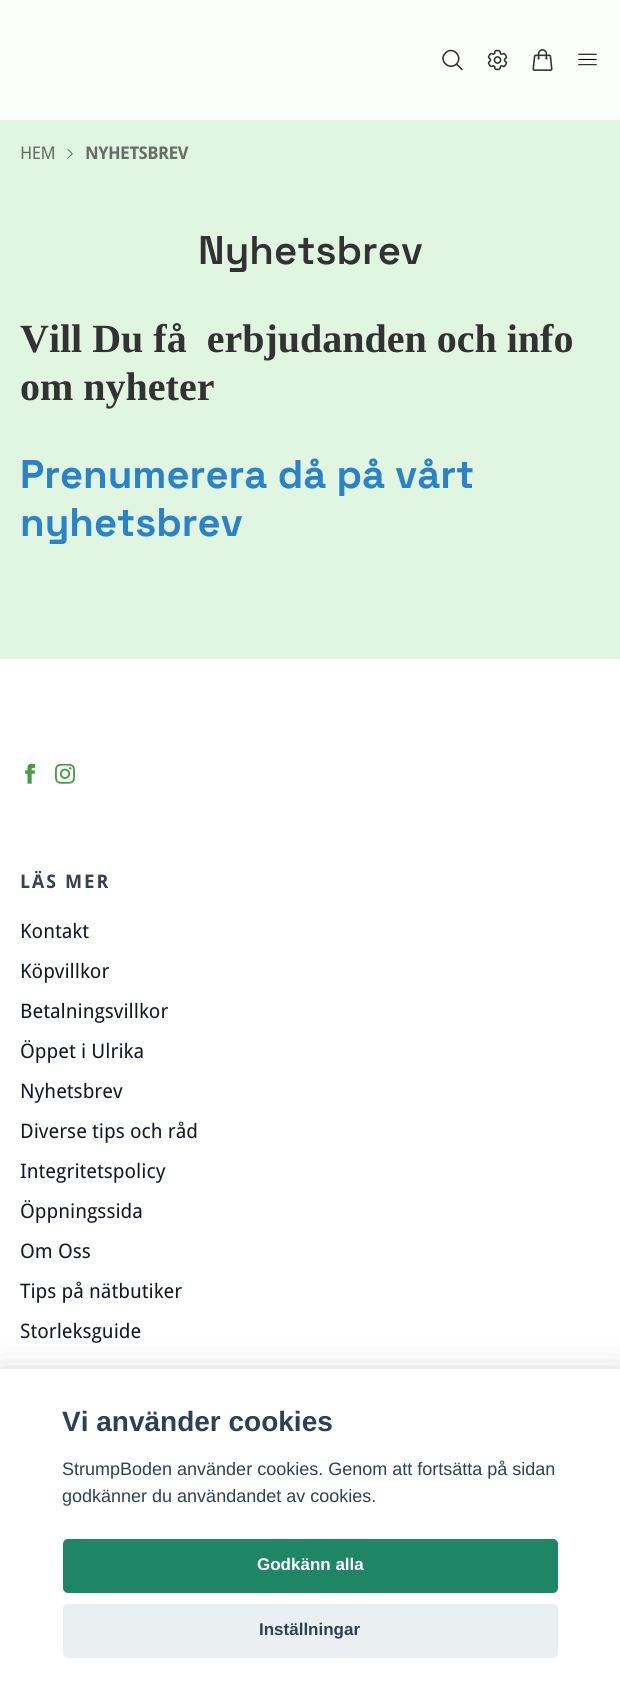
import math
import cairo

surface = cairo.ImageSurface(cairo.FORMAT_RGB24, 620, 1694)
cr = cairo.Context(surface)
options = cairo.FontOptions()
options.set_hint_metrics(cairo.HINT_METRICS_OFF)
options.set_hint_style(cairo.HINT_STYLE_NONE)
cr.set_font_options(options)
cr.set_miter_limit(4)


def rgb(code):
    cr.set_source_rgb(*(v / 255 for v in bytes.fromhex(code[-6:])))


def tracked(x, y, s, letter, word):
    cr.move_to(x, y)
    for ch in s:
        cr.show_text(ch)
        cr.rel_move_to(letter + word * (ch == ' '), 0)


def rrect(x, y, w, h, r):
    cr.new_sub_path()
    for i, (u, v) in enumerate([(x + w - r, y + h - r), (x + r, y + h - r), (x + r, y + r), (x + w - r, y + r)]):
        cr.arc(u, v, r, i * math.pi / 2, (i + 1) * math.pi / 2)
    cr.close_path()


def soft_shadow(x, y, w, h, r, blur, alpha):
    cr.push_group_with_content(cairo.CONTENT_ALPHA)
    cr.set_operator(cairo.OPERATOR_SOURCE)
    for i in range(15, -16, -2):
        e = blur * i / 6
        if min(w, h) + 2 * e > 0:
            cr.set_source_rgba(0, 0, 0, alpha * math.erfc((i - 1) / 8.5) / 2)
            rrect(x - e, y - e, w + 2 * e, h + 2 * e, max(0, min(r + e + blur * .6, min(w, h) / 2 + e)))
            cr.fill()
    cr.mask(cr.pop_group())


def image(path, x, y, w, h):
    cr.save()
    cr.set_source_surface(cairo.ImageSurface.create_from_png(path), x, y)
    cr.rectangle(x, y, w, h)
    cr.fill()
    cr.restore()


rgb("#e1f6e1")
cr.paint()
rgb("#fcfefc")
cr.rectangle(0, 0, 620, 120)
cr.fill()
cr.new_path()
cr.move_to(462, 69.5)
cr.line_to(456.5, 64)
cr.move_to(456.5, 64)
cr.curve_to(463.5, 56.5, 452.5, 45.5, 445.5, 53)
cr.curve_to(438, 60, 449, 71, 456.5, 64)
cr.close_path()
rgb("#323232")
cr.set_line_width(1.6)
cr.set_line_cap(cairo.LINE_CAP_ROUND)
cr.set_line_join(cairo.LINE_JOIN_ROUND)
cr.stroke()
image("img/1.png", 487, 49, 21, 22)
image("img/2.png", 532, 49, 21, 22)
image("img/3.png", 578, 53, 19, 13)
image("img/4.png", 67, 149, 6, 10)
rgb("#ffffff")
cr.rectangle(0, 659, 620, 710)
cr.fill()
image("img/5.png", 25, 764, 10, 20)
image("img/6.png", 55, 764, 20, 20)
rgb("#020203")
soft_shadow(0, 1381, 620, 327, 0, 19, 0.28)
rgb("#ffffff")
cr.rectangle(0, 1369, 620, 325)
cr.fill()
rgb("#1f8665")
rrect(63, 1539, 495, 54, 5)
cr.fill()
rgb("#eaeff2")
rrect(63, 1604, 495, 54, 5)
cr.fill()
cr.select_font_face("Droid Sans")
cr.set_font_size(17.5)
rgb("#676d67")
tracked(20, 159, "HEM", -0.5, 0)
cr.select_font_face("Droid Sans", cairo.FONT_SLANT_NORMAL, cairo.FONT_WEIGHT_BOLD)
tracked(85, 159, "NYHETSBREV", -0.5, 0)
cr.select_font_face("Space Grotesk SemiBold")
cr.set_font_size(40)
rgb("#323232")
cr.move_to(198, 264)
cr.show_text("Nyhetsbrev")
cr.select_font_face("Liberation Serif", cairo.FONT_SLANT_NORMAL, cairo.FONT_WEIGHT_BOLD)
cr.move_to(20, 352)
cr.show_text("Vill Du få  erbjudanden och info")
cr.move_to(20, 400)
cr.show_text("om nyheter")
cr.select_font_face("Space Grotesk", cairo.FONT_SLANT_NORMAL, cairo.FONT_WEIGHT_BOLD)
rgb("#2c82c9")
cr.move_to(20, 488)
cr.show_text("Prenumerera då på vårt")
cr.move_to(20, 536)
cr.show_text("nyhetsbrev")
cr.select_font_face("Droid Sans", cairo.FONT_SLANT_NORMAL, cairo.FONT_WEIGHT_BOLD)
cr.set_font_size(18.75)
rgb("#374151")
tracked(20, 888, "LÄS MER", 2, 0)
cr.select_font_face("Droid Sans")
cr.set_font_size(20)
rgb("#111827")
for x, y, s in [
    (20, 938, "Kontakt"),
    (20, 978, "Köpvillkor"),
    (20, 1018, "Betalningsvillkor"),
    (20, 1058, "Öppet i Ulrika"),
    (20, 1098, "Nyhetsbrev"),
    (20, 1138, "Diverse tips och råd"),
    (20, 1178, "Integritetspolicy"),
    (20, 1218, "Öppningssida"),
    (20, 1258, "Om Oss"),
    (20, 1298, "Tips på nätbutiker"),
    (20, 1338, "Storleksguide"),
]:
    cr.move_to(x, y)
    cr.show_text(s)
cr.select_font_face("Liberation Sans", cairo.FONT_SLANT_NORMAL, cairo.FONT_WEIGHT_BOLD)
cr.set_font_size(28)
rgb("#2d4156")
cr.move_to(62, 1431)
cr.show_text("Vi använder cookies")
cr.select_font_face("Liberation Sans")
cr.set_font_size(18)
cr.move_to(62, 1475)
cr.show_text("StrumpBoden använder cookies. Genom att fortsätta på sidan")
cr.move_to(62, 1502)
cr.show_text("godkänner du användandet av cookies.")
cr.select_font_face("Liberation Sans", cairo.FONT_SLANT_NORMAL, cairo.FONT_WEIGHT_BOLD)
cr.set_font_size(17)
rgb("#ffffff")
cr.move_to(257, 1570)
cr.show_text("Godkänn alla")
rgb("#2d4156")
cr.move_to(259, 1635)
cr.show_text("Inställningar")
surface.write_to_png("page.png")
